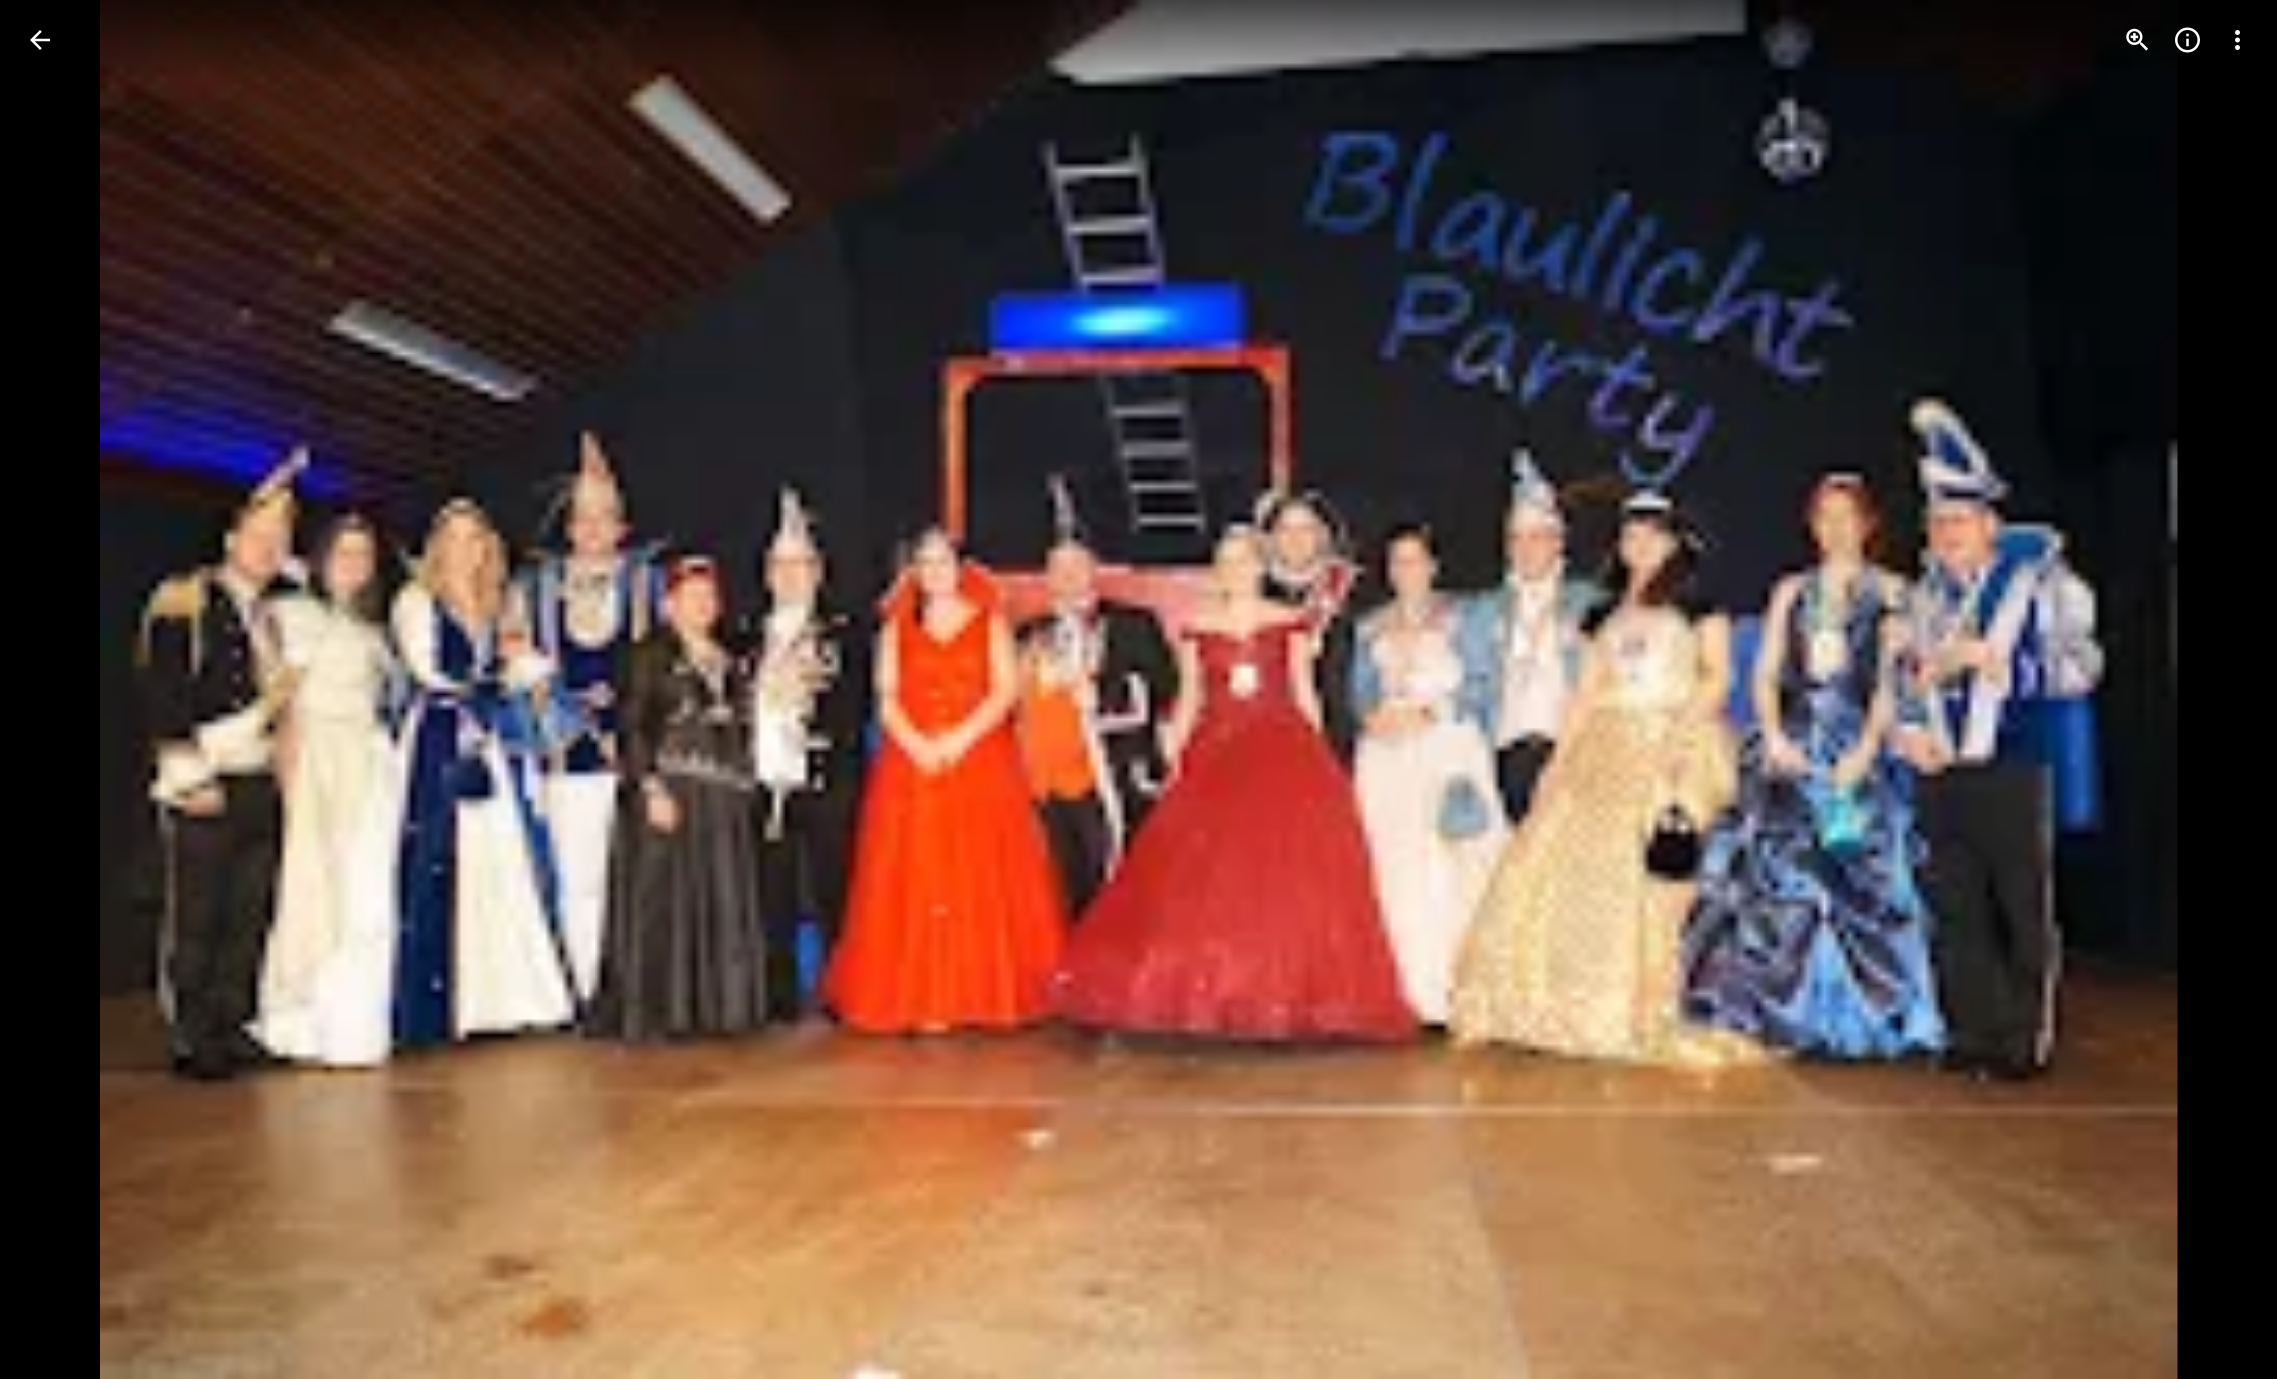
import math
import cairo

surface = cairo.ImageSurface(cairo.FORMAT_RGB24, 2277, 1379)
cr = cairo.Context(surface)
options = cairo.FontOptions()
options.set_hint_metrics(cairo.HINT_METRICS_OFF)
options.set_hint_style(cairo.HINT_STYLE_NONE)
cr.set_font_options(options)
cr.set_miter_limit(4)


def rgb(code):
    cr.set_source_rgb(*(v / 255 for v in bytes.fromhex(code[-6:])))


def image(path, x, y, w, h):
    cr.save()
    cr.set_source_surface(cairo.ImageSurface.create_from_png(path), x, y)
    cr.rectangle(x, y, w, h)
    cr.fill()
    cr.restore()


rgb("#000000")
cr.paint()
image("img/5.png", 100, 0, 2078, 1379)
gradient = cairo.LinearGradient(1139, 0, 1139, 80)
gradient.add_color_stop_rgba(0, 0, 0, 0, 0.6)
gradient.add_color_stop_rgba(1, 0, 0, 0, 0)
cr.set_source(gradient)
cr.rectangle(100, 0, 2077, 77)
cr.fill()
image("img/1.png", 30, 30, 20, 20)
image("img/2.png", 2126, 28, 22, 23)
image("img/3.png", 2175, 27, 25, 26)
image("img/4.png", 2235, 30, 5, 20)
surface.write_to_png("page.png")
